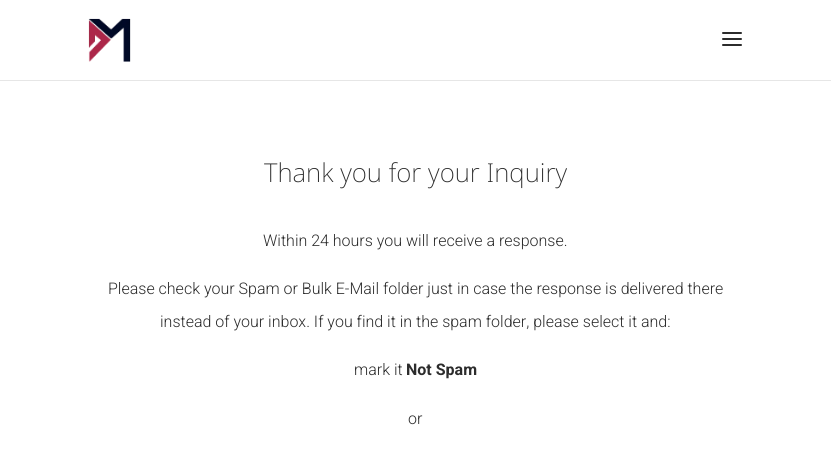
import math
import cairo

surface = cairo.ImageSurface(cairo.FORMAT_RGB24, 831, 457)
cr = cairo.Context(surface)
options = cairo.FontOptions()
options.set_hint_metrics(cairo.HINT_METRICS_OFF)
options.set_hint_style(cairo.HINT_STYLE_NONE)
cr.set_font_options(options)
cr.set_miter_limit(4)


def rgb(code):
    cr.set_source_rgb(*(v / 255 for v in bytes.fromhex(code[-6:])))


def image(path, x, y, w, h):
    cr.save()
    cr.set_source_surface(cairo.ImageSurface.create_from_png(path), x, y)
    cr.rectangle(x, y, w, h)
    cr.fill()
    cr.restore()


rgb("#ffffff")
cr.paint()
rgb("#e6e6e6")
cr.rectangle(0, 80, 831, 1)
cr.fill()
image("img/1.png", 88, 18, 43, 44)
image("img/2.png", 722, 32, 20, 14)
cr.select_font_face("Noto Sans ExtraLight")
cr.set_font_size(26)
rgb("#2c2c2c")
cr.move_to(264, 182)
cr.show_text("Thank you for your Inquiry")
cr.select_font_face("Roboto Light")
cr.set_font_size(16)
for x, y, s in [
    (263, 246, "Within 24 hours you will receive a response."),
    (108, 294, "Please check your Spam or Bulk E-Mail folder just in case the response is delivered there"),
    (160, 327, "instead of your inbox. If you find it in the spam folder, please select it and:"),
    (354, 375, "mark it"),
]:
    cr.move_to(x, y)
    cr.show_text(s)
cr.select_font_face("Roboto", cairo.FONT_SLANT_NORMAL, cairo.FONT_WEIGHT_BOLD)
cr.move_to(406, 375)
cr.show_text("Not Spam")
cr.select_font_face("Roboto Light")
cr.move_to(408, 424)
cr.show_text("or")
surface.write_to_png("page.png")
